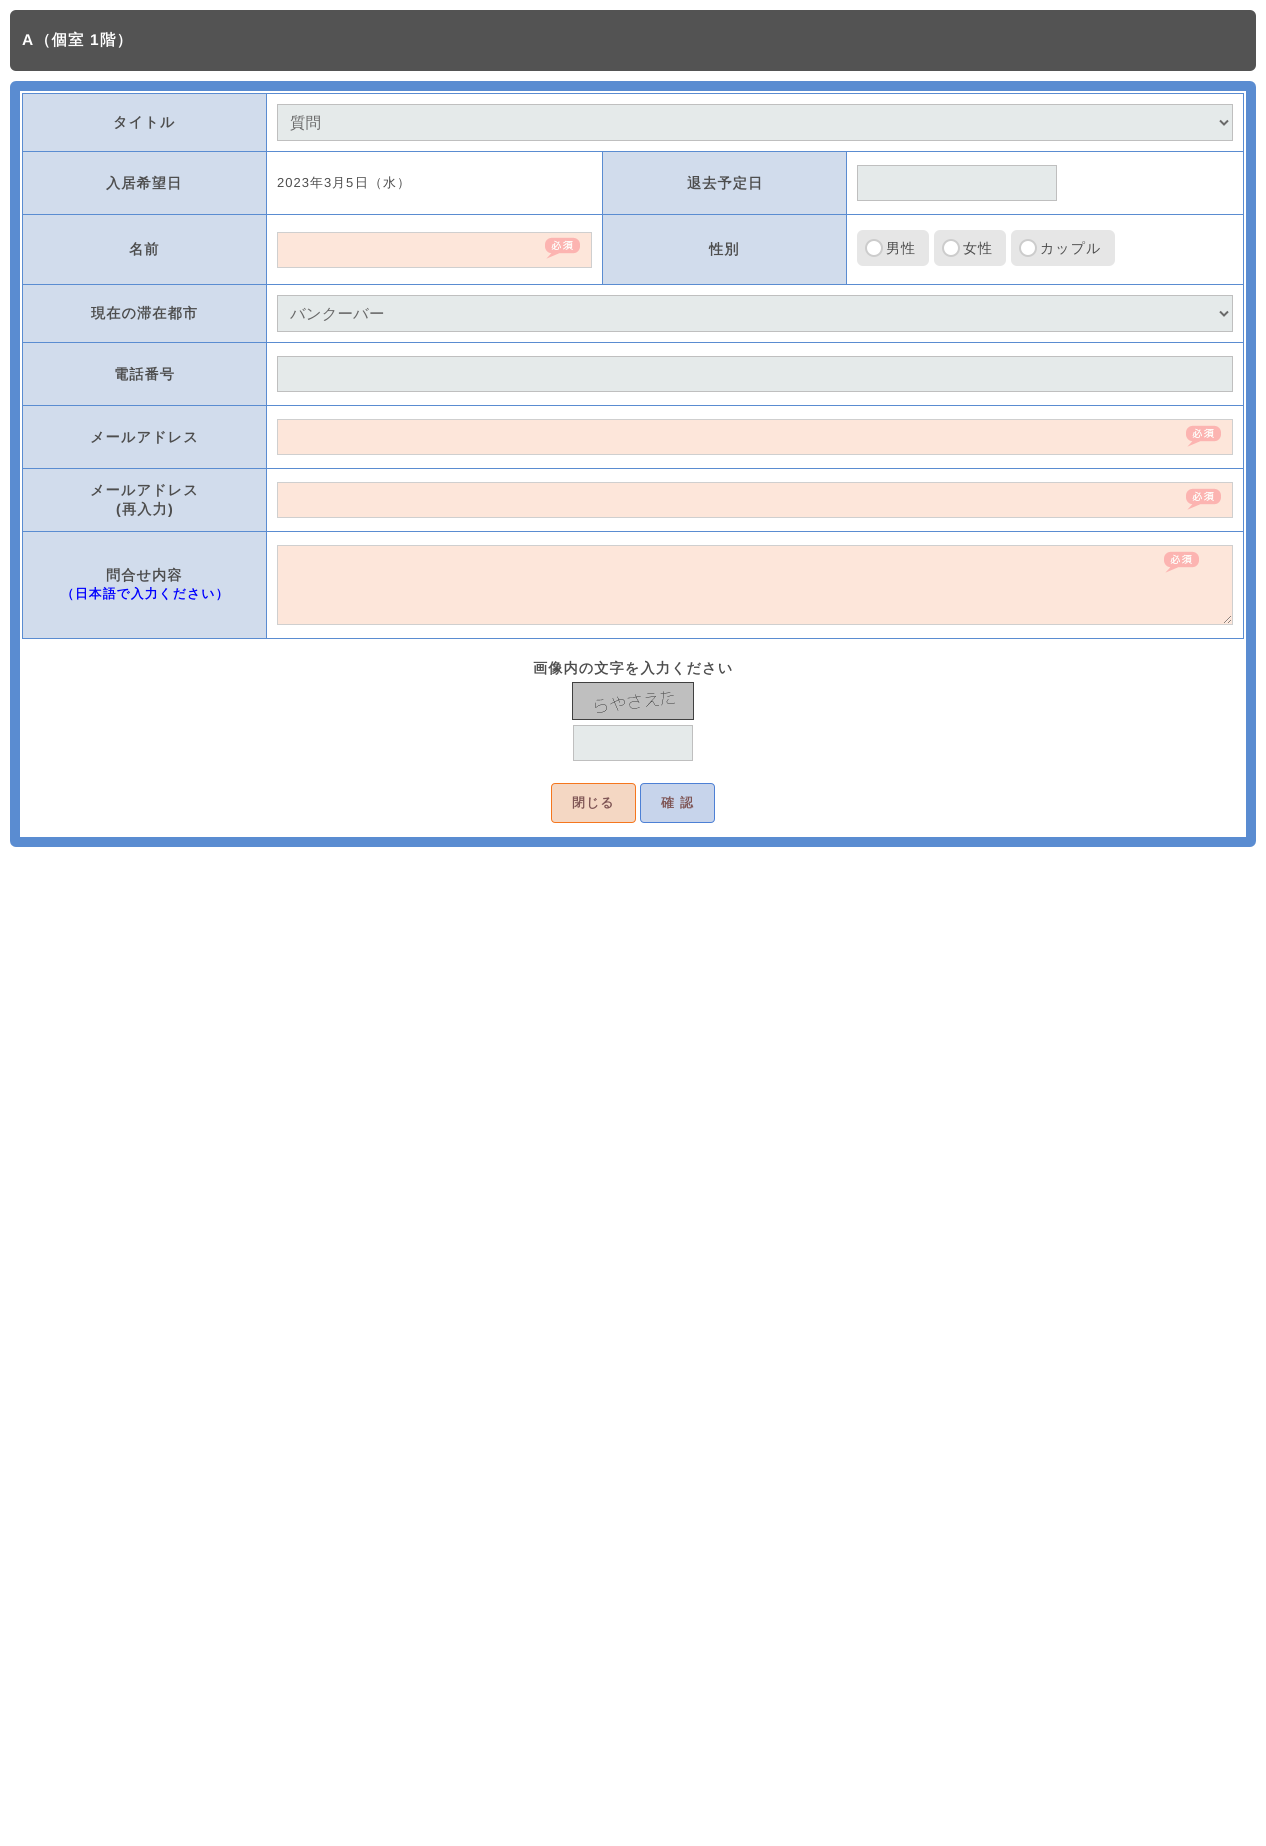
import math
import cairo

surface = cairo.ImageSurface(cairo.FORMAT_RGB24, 1266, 1846)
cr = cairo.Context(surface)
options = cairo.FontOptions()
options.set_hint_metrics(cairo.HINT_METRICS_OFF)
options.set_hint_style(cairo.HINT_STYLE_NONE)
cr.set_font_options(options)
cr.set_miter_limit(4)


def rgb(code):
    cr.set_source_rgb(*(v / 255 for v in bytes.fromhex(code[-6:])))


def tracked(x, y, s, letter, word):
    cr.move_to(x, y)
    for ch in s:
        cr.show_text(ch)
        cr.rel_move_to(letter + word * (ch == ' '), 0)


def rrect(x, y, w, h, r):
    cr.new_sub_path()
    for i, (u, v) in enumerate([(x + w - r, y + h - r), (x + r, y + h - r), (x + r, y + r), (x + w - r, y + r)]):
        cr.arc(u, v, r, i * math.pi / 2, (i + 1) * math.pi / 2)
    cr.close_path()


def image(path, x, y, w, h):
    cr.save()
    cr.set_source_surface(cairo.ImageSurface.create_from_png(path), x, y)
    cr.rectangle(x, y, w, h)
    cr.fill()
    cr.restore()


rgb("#ffffff")
cr.paint()
rgb("#535353")
rrect(10, 10, 1246, 61, 6)
cr.fill()
rrect(15, 86, 1236, 756, 1)
rgb("#5a8cd1")
cr.set_line_width(10)
cr.stroke()
for x, y, w, h, color in [
    (23, 94, 243, 57, "#d1dcec"),
    (266, 93, 978, 1, "#5a8cd1"),
    (846, 151, 398, 1, "#5a8cd1"),
    (846, 214, 398, 1, "#5a8cd1"),
    (266, 284, 978, 1, "#5a8cd1"),
    (846, 214, 1, 71, "#5a8cd1"),
    (602, 214, 245, 1, "#5a8cd1"),
    (846, 151, 1, 64, "#5a8cd1"),
    (602, 151, 245, 1, "#5a8cd1"),
    (602, 214, 1, 71, "#5a8cd1"),
    (266, 214, 337, 1, "#5a8cd1"),
    (602, 151, 1, 64, "#5a8cd1"),
    (266, 151, 337, 1, "#5a8cd1"),
    (266, 342, 978, 1, "#5a8cd1"),
    (266, 405, 978, 1, "#5a8cd1"),
    (266, 468, 978, 1, "#5a8cd1"),
    (266, 531, 978, 1, "#5a8cd1"),
    (1243, 531, 1, 108, "#5a8cd1"),
    (266, 638, 978, 1, "#5a8cd1"),
    (266, 531, 1, 108, "#5a8cd1"),
    (22, 531, 245, 1, "#5a8cd1"),
    (266, 468, 1, 64, "#5a8cd1"),
    (22, 468, 245, 1, "#5a8cd1"),
    (266, 405, 1, 64, "#5a8cd1"),
    (22, 405, 245, 1, "#5a8cd1"),
    (266, 342, 1, 64, "#5a8cd1"),
    (22, 342, 245, 1, "#5a8cd1"),
    (266, 284, 1, 59, "#5a8cd1"),
    (22, 284, 245, 1, "#5a8cd1"),
    (266, 214, 1, 71, "#5a8cd1"),
    (22, 214, 245, 1, "#5a8cd1"),
    (266, 151, 1, 64, "#5a8cd1"),
    (22, 151, 245, 1, "#5a8cd1"),
    (266, 93, 1, 59, "#5a8cd1"),
    (22, 93, 245, 1, "#5a8cd1"),
    (22, 638, 245, 1, "#5a8cd1"),
    (22, 531, 1, 108, "#5a8cd1"),
    (22, 468, 1, 64, "#5a8cd1"),
    (22, 405, 1, 64, "#5a8cd1"),
    (22, 342, 1, 64, "#5a8cd1"),
    (22, 284, 1, 59, "#5a8cd1"),
    (22, 214, 1, 71, "#5a8cd1"),
    (22, 151, 1, 64, "#5a8cd1"),
    (22, 93, 1, 59, "#5a8cd1"),
    (1243, 468, 1, 64, "#5a8cd1"),
    (1243, 405, 1, 64, "#5a8cd1"),
    (1243, 342, 1, 64, "#5a8cd1"),
    (1243, 284, 1, 59, "#5a8cd1"),
    (1243, 214, 1, 71, "#5a8cd1"),
    (1243, 151, 1, 64, "#5a8cd1"),
    (1243, 93, 1, 59, "#5a8cd1"),
]:
    rgb(color)
    cr.rectangle(x, y, w, h)
    cr.fill()
rgb("#e5eaea")
cr.rectangle(277.5, 104.5, 955, 36)
cr.fill_preserve()
rgb("#bfbfbf")
cr.set_line_width(1)
cr.stroke()
cr.new_path()
cr.move_to(1220, 120.5)
cr.line_to(1224, 124.5)
cr.line_to(1228, 120.5)
rgb("#696969")
cr.set_line_width(2)
cr.stroke()
rgb("#d1dcec")
cr.rectangle(23, 152, 243, 62)
cr.fill()
cr.rectangle(603, 152, 243, 62)
cr.fill()
rgb("#e5eaea")
cr.rectangle(857.5, 165.5, 199, 35)
cr.fill_preserve()
rgb("#bfbfbf")
cr.set_line_width(1)
cr.stroke()
rgb("#d1dcec")
cr.rectangle(23, 215, 243, 69)
cr.fill()
rgb("#fde6da")
cr.rectangle(278, 233, 313, 34)
cr.fill()
image("img/1.png", 545, 237, 35, 22)
cr.rectangle(277.5, 232.5, 314, 35)
rgb("#cfcfcf")
cr.stroke()
rgb("#d1dcec")
cr.rectangle(603, 215, 243, 69)
cr.fill()
rgb("#e6e6e6")
rrect(857, 230, 72, 36, 6)
cr.fill()
rgb("#ffffff")
cr.arc(874, 248, 8, 0, 2 * math.pi)
cr.fill_preserve()
rgb("#cccccc")
cr.set_line_width(2)
cr.stroke()
rgb("#e6e6e6")
rrect(934, 230, 72, 36, 6)
cr.fill()
rgb("#ffffff")
cr.arc(951, 248, 8, 0, 2 * math.pi)
cr.fill_preserve()
rgb("#cccccc")
cr.stroke()
rgb("#e6e6e6")
rrect(1011, 230, 104, 36, 6)
cr.fill()
rgb("#ffffff")
cr.arc(1028, 248, 8, 0, 2 * math.pi)
cr.fill_preserve()
rgb("#cccccc")
cr.stroke()
rgb("#d1dcec")
cr.rectangle(23, 285, 243, 57)
cr.fill()
rgb("#e5eaea")
cr.rectangle(277.5, 295.5, 955, 36)
cr.fill_preserve()
rgb("#bfbfbf")
cr.set_line_width(1)
cr.stroke()
cr.new_path()
cr.move_to(1220, 311.5)
cr.line_to(1224, 315.5)
cr.line_to(1228, 311.5)
rgb("#696969")
cr.set_line_width(2)
cr.stroke()
rgb("#d1dcec")
cr.rectangle(23, 343, 243, 62)
cr.fill()
rgb("#e5eaea")
cr.rectangle(277.5, 356.5, 955, 35)
cr.fill_preserve()
rgb("#bfbfbf")
cr.set_line_width(1)
cr.stroke()
rgb("#d1dcec")
cr.rectangle(23, 406, 243, 62)
cr.fill()
rgb("#fde6da")
cr.rectangle(278, 420, 954, 34)
cr.fill()
image("img/1.png", 1186, 425, 35, 22)
cr.rectangle(277.5, 419.5, 955, 35)
rgb("#cfcfcf")
cr.stroke()
rgb("#d1dcec")
cr.rectangle(23, 469, 243, 62)
cr.fill()
rgb("#fde6da")
cr.rectangle(278, 483, 954, 34)
cr.fill()
image("img/1.png", 1186, 488, 35, 22)
cr.rectangle(277.5, 482.5, 955, 35)
rgb("#cfcfcf")
cr.stroke()
rgb("#d1dcec")
cr.rectangle(23, 532, 243, 106)
cr.fill()
rgb("#fde6da")
cr.rectangle(278, 546, 954, 78)
cr.fill()
image("img/2.png", 1164, 551, 67, 72)
cr.rectangle(277.5, 545.5, 955, 79)
rgb("#cfcfcf")
cr.stroke()
cr.rectangle(572.5, 682.5, 121, 37)
rgb("#404040")
cr.stroke()
image("img/3.png", 573, 683, 120, 36)
rgb("#e5eaea")
cr.rectangle(573.5, 725.5, 119, 35)
cr.fill_preserve()
rgb("#bfbfbf")
cr.stroke()
rgb("#f4d7c3")
rrect(551.5, 783.5, 84, 39, 3.5)
cr.fill_preserve()
rgb("#f5761d")
cr.stroke()
rgb("#c7d4eb")
rrect(640.5, 783.5, 74, 39, 3.5)
cr.fill_preserve()
rgb("#4d80d5")
cr.stroke()
cr.select_font_face("Liberation Sans", cairo.FONT_SLANT_NORMAL, cairo.FONT_WEIGHT_BOLD)
cr.set_font_size(15.5)
rgb("#ffffff")
tracked(22, 45, "A", 1, 0)
cr.select_font_face("WenQuanYi Zen Hei", cairo.FONT_SLANT_NORMAL, cairo.FONT_WEIGHT_BOLD)
tracked(35, 45, "（個室", 1, 0)
cr.select_font_face("Liberation Sans", cairo.FONT_SLANT_NORMAL, cairo.FONT_WEIGHT_BOLD)
tracked(90, 45, "1", 1, 0)
cr.select_font_face("WenQuanYi Zen Hei", cairo.FONT_SLANT_NORMAL, cairo.FONT_WEIGHT_BOLD)
tracked(100, 45, "階）", 1, 0)
cr.set_font_size(14.25)
rgb("#4d4d4d")
tracked(113, 127, "タイトル", 1, 0)
cr.select_font_face("WenQuanYi Zen Hei Medium")
cr.set_font_size(15.5)
rgb("#696969")
cr.move_to(290, 128)
cr.show_text("質問")
cr.select_font_face("WenQuanYi Zen Hei", cairo.FONT_SLANT_NORMAL, cairo.FONT_WEIGHT_BOLD)
cr.set_font_size(14.25)
rgb("#4d4d4d")
tracked(106, 188, "入居希望日", 1, 0)
cr.select_font_face("Liberation Sans")
cr.set_font_size(13)
tracked(277, 187, "2023", 1, 0)
cr.select_font_face("WenQuanYi Zen Hei Medium")
tracked(310, 187, "年", 1, 0)
cr.select_font_face("Liberation Sans")
tracked(324, 187, "3", 1, 0)
cr.select_font_face("WenQuanYi Zen Hei Medium")
tracked(332, 187, "月", 1, 0)
cr.select_font_face("Liberation Sans")
tracked(346, 187, "5", 1, 0)
cr.select_font_face("WenQuanYi Zen Hei Medium")
tracked(355, 187, "日（水）", 1, 0)
cr.select_font_face("WenQuanYi Zen Hei", cairo.FONT_SLANT_NORMAL, cairo.FONT_WEIGHT_BOLD)
cr.set_font_size(14.25)
for x, y, s in [
    (687, 188, "退去予定日"),
    (129, 254, "名前"),
    (709, 254, "性別"),
]:
    tracked(x, y, s, 1, 0)
cr.select_font_face("WenQuanYi Zen Hei Medium")
cr.set_font_size(14)
for x, y, s in [
    (886, 253, "男性"),
    (963, 253, "女性"),
    (1040, 253, "カップル"),
]:
    tracked(x, y, s, 1, 0)
cr.select_font_face("WenQuanYi Zen Hei", cairo.FONT_SLANT_NORMAL, cairo.FONT_WEIGHT_BOLD)
cr.set_font_size(14.25)
tracked(91, 318, "現在の滞在都市", 1, 0)
cr.select_font_face("WenQuanYi Zen Hei Medium")
cr.set_font_size(15.5)
rgb("#696969")
cr.move_to(290, 319)
cr.show_text("バンクーバー")
cr.select_font_face("WenQuanYi Zen Hei", cairo.FONT_SLANT_NORMAL, cairo.FONT_WEIGHT_BOLD)
cr.set_font_size(14.25)
rgb("#4d4d4d")
for x, y, s in [
    (114, 379, "電話番号"),
    (90, 442, "メールアドレス"),
    (90, 495, "メールアドレス"),
]:
    tracked(x, y, s, 1, 0)
cr.select_font_face("Liberation Sans", cairo.FONT_SLANT_NORMAL, cairo.FONT_WEIGHT_BOLD)
tracked(116, 514, "(", 1, 0)
cr.select_font_face("WenQuanYi Zen Hei", cairo.FONT_SLANT_NORMAL, cairo.FONT_WEIGHT_BOLD)
tracked(122, 514, "再入力", 1, 0)
cr.select_font_face("Liberation Sans", cairo.FONT_SLANT_NORMAL, cairo.FONT_WEIGHT_BOLD)
tracked(168, 514, ")", 1, 0)
cr.select_font_face("WenQuanYi Zen Hei", cairo.FONT_SLANT_NORMAL, cairo.FONT_WEIGHT_BOLD)
tracked(106, 580, "問合せ内容", 1, 0)
cr.set_font_size(12.9)
rgb("#0000ff")
tracked(61, 598, "（日本語で入力ください）", 1, 0)
cr.set_font_size(14.25)
rgb("#4d4d4d")
tracked(533, 673, "画像内の文字を入力ください", 1, 0)
cr.set_font_size(13)
rgb("#7e5454")
tracked(572, 807, "閉じる", 1, 0)
tracked(661, 807, "確 認", 1, 0)
surface.write_to_png("page.png")
